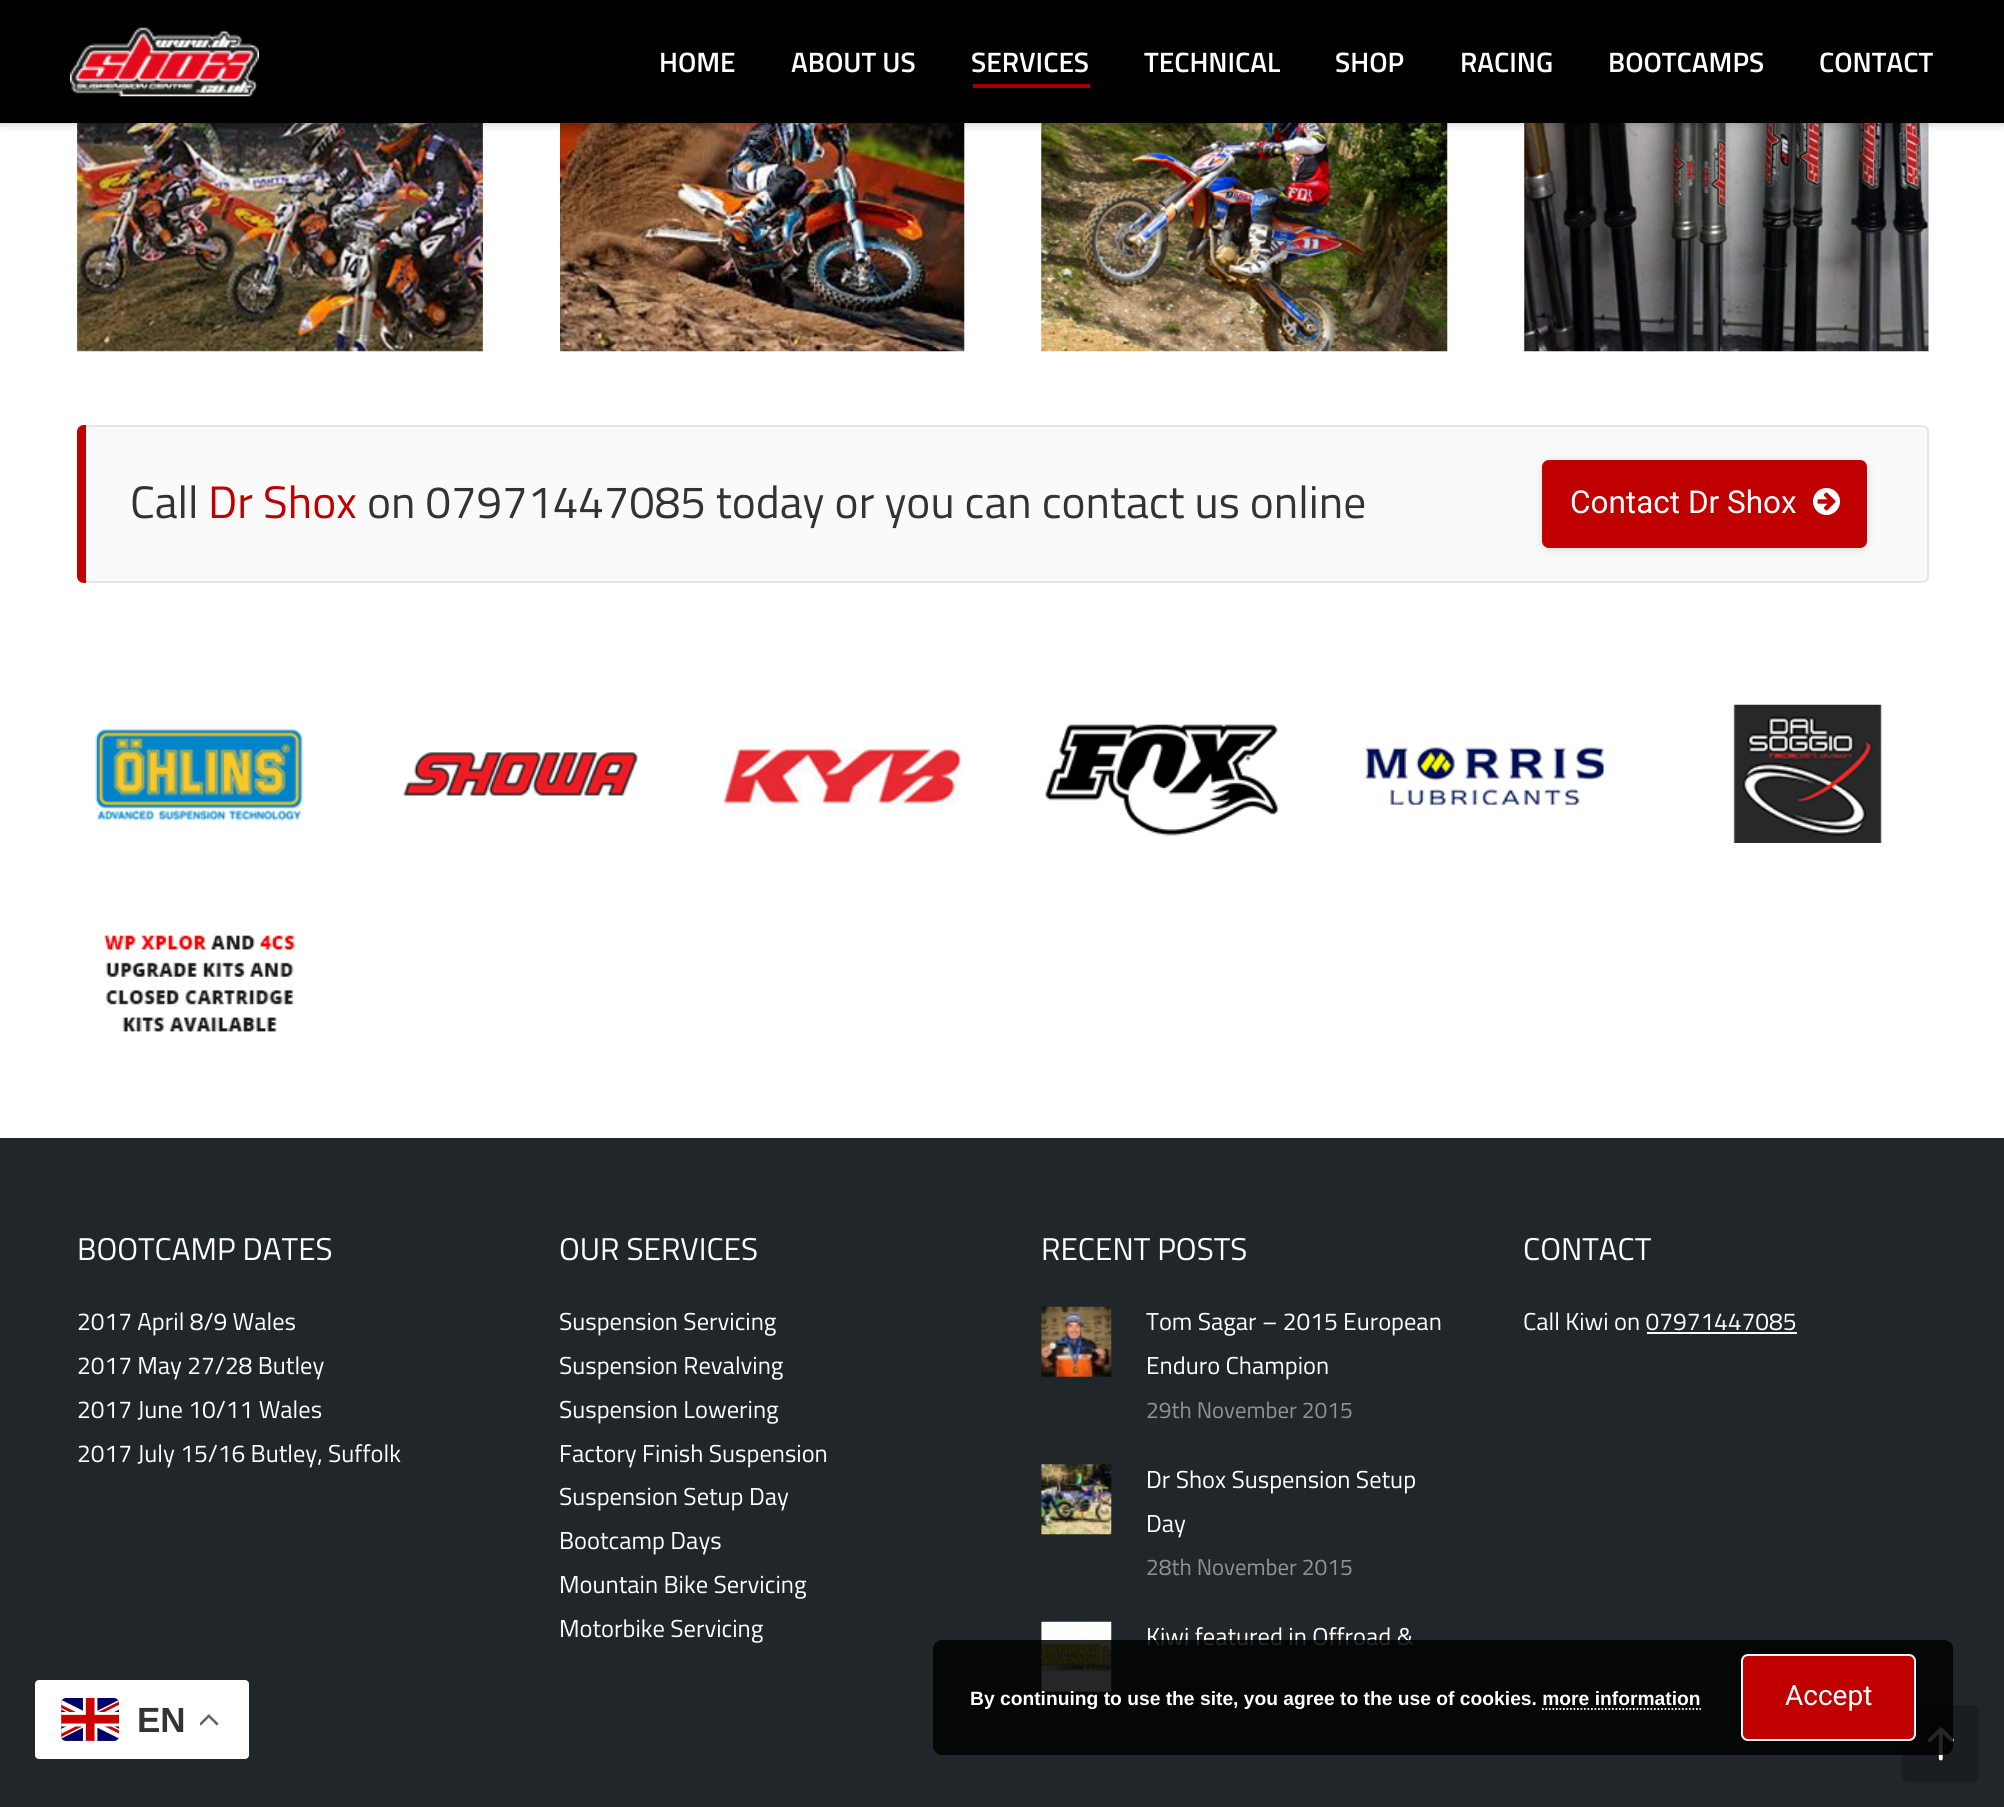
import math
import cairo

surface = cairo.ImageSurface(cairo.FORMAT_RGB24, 2004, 1807)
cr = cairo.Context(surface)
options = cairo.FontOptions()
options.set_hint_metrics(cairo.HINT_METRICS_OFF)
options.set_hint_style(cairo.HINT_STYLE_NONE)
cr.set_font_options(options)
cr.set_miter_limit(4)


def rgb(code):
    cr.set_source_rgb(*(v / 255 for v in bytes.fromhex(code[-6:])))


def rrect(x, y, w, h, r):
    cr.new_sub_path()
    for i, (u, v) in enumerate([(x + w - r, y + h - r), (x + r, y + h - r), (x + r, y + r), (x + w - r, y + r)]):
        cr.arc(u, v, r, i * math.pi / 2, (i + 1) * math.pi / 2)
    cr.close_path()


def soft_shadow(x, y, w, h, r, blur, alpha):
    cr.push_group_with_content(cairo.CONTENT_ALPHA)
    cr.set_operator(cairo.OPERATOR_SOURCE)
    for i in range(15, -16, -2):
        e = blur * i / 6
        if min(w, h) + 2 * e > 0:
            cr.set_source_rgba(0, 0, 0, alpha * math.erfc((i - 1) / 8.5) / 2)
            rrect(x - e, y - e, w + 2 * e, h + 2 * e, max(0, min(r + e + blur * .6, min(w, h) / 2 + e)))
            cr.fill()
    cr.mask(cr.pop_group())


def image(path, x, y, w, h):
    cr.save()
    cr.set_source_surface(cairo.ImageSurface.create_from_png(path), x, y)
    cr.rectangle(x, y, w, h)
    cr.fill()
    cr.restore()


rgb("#ffffff")
cr.paint()
image("img/2.png", 77, 123, 406, 229)
image("img/3.png", 560, 123, 405, 229)
image("img/4.png", 1041, 123, 407, 229)
image("img/5.png", 1524, 123, 405, 229)
rgb("#000000")
soft_shadow(0, 0, 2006, 123, 0, 5, 0.25)
rgb("#000000")
cr.rectangle(0, 0, 2004, 123)
cr.fill()
image("img/1.png", 70, 27, 189, 70)
rgb("#a30000")
cr.rectangle(973, 84, 117, 4)
cr.fill()
rgb("#fafafa")
rrect(78, 426, 1850, 156, 6)
cr.fill_preserve()
rgb("#e6e6e6")
cr.stroke()
rgb("#c00000")
cr.new_path()
cr.move_to(84, 425)
cr.line_to(86, 425)
cr.line_to(86, 583)
cr.line_to(84, 583)
cr.curve_to(80, 583, 77, 580, 77, 576)
cr.line_to(77, 432)
cr.curve_to(77, 428, 80, 425, 84, 425)
cr.close_path()
cr.fill()
rgb("#000000")
soft_shadow(1542, 462, 325, 88, 7, 5, 0.12)
rgb("#c00000")
rrect(1542, 460, 325, 88, 7)
cr.fill()
image("img/6.png", 1813, 488, 27, 27)
image("img/7.png", 95, 729, 208, 92)
image("img/8.png", 403, 752, 235, 44)
image("img/9.png", 723, 749, 240, 57)
image("img/10.png", 1045, 724, 234, 112)
image("img/11.png", 1364, 747, 240, 58)
image("img/12.png", 1733, 704, 149, 139)
image("img/13.png", 104, 935, 191, 97)
rgb("#20262a")
cr.rectangle(0, 1138, 2004, 669)
cr.fill()
image("img/14.png", 1041, 1306, 71, 71)
image("img/15.png", 1041, 1464, 71, 71)
image("img/16.png", 1041, 1621, 71, 71)
rgb("#ffffff")
cr.rectangle(1647, 1332, 150, 2)
cr.fill()
rgb("#1a1e22")
rrect(1902, 1705, 77, 77, 7)
cr.fill()
image("img/17.png", 1927, 1727, 27, 34)
rgb("#ffffff")
rrect(35, 1680, 214, 79, 4)
cr.fill()
image("img/18.png", 61, 1698, 58, 43)
image("img/19.png", 200, 1714, 19, 12)
cr.select_font_face("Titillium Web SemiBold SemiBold")
cr.set_font_size(28)
for x, y, s in [
    (659, 72, "HOME"),
    (791, 72, "ABOUT US"),
    (971, 72, "SERVICES"),
    (1144, 72, "TECHNICAL"),
    (1335, 72, "SHOP"),
    (1460, 72, "RACING"),
    (1608, 72, "BOOTCAMPS"),
    (1819, 72, "CONTACT"),
]:
    cr.move_to(x, y)
    cr.show_text(s)
cr.select_font_face("Titillium Web")
cr.set_font_size(45.5)
rgb("#333333")
cr.move_to(130, 518)
cr.show_text("Call")
rgb("#c00000")
cr.move_to(208, 518)
cr.show_text("Dr Shox")
rgb("#333333")
cr.move_to(367, 518)
cr.show_text("on 07971447085 today or you can contact us online")
cr.select_font_face("Roboto")
cr.set_font_size(31.5)
rgb("#ffffff")
cr.move_to(1570, 513)
cr.show_text("Contact Dr Shox")
cr.select_font_face("Titillium Web")
cr.move_to(77, 1260)
cr.show_text("BOOTCAMP DATES")
cr.set_font_size(24.5)
for x, y, s in [
    (77, 1330, "2017 April 8/9 Wales"),
    (77, 1374, "2017 May 27/28 Butley"),
    (77, 1418, "2017 June 10/11 Wales"),
    (77, 1462, "2017 July 15/16 Butley, Suffolk"),
]:
    cr.move_to(x, y)
    cr.show_text(s)
cr.set_font_size(31.5)
cr.move_to(559, 1260)
cr.show_text("OUR SERVICES")
cr.set_font_size(24.5)
for x, y, s in [
    (559, 1330, "Suspension Servicing"),
    (559, 1374, "Suspension Revalving"),
    (559, 1418, "Suspension Lowering"),
    (559, 1462, "Factory Finish Suspension"),
    (559, 1505, "Suspension Setup Day"),
    (559, 1549, "Bootcamp Days"),
    (559, 1593, "Mountain Bike Servicing"),
    (559, 1637, "Motorbike Servicing"),
]:
    cr.move_to(x, y)
    cr.show_text(s)
cr.set_font_size(31.5)
cr.move_to(1041, 1260)
cr.show_text("RECENT POSTS")
cr.set_font_size(24.5)
cr.move_to(1146, 1330)
cr.show_text("Tom Sagar – 2015 European")
cr.move_to(1146, 1374)
cr.show_text("Enduro Champion")
cr.set_font_size(22.75)
rgb("#909395")
cr.move_to(1146, 1418)
cr.show_text("29th November 2015")
cr.set_font_size(24.5)
rgb("#ffffff")
cr.move_to(1146, 1488)
cr.show_text("Dr Shox Suspension Setup")
cr.move_to(1146, 1532)
cr.show_text("Day")
cr.set_font_size(22.75)
rgb("#909395")
cr.move_to(1146, 1575)
cr.show_text("28th November 2015")
cr.set_font_size(24.5)
rgb("#ffffff")
cr.move_to(1146, 1645)
cr.show_text("Kiwi featured in Offroad &")
cr.set_font_size(31.5)
cr.move_to(1523, 1260)
cr.show_text("CONTACT")
cr.set_font_size(24.5)
cr.move_to(1523, 1330)
cr.show_text("Call Kiwi on 07971447085")
cr.set_source_rgba(0, 0, 0, 0.85)
rrect(933, 1640, 1020, 115, 9)
cr.fill()
cr.select_font_face("Liberation Sans", cairo.FONT_SLANT_NORMAL, cairo.FONT_WEIGHT_BOLD)
cr.set_font_size(19.25)
rgb("#ffffff")
cr.move_to(970, 1705)
cr.show_text("By continuing to use the site, you agree to the use of cookies. more information")
rgb("#c00000")
rrect(1742, 1655, 173, 85, 6)
cr.fill_preserve()
rgb("#f6f6f6")
cr.stroke()
cr.select_font_face("Roboto")
cr.set_font_size(28)
rgb("#ffffff")
cr.move_to(1785, 1705)
cr.show_text("Accept")
cr.new_path()
cr.move_to(1542, 1709)
cr.line_to(1701, 1709)
cr.set_line_width(1.8)
cr.set_dash([1.75, 1.75])
cr.stroke()
cr.select_font_face("Liberation Sans", cairo.FONT_SLANT_NORMAL, cairo.FONT_WEIGHT_BOLD)
cr.set_font_size(35)
rgb("#333333")
cr.move_to(137, 1732)
cr.show_text("EN")
surface.write_to_png("page.png")
